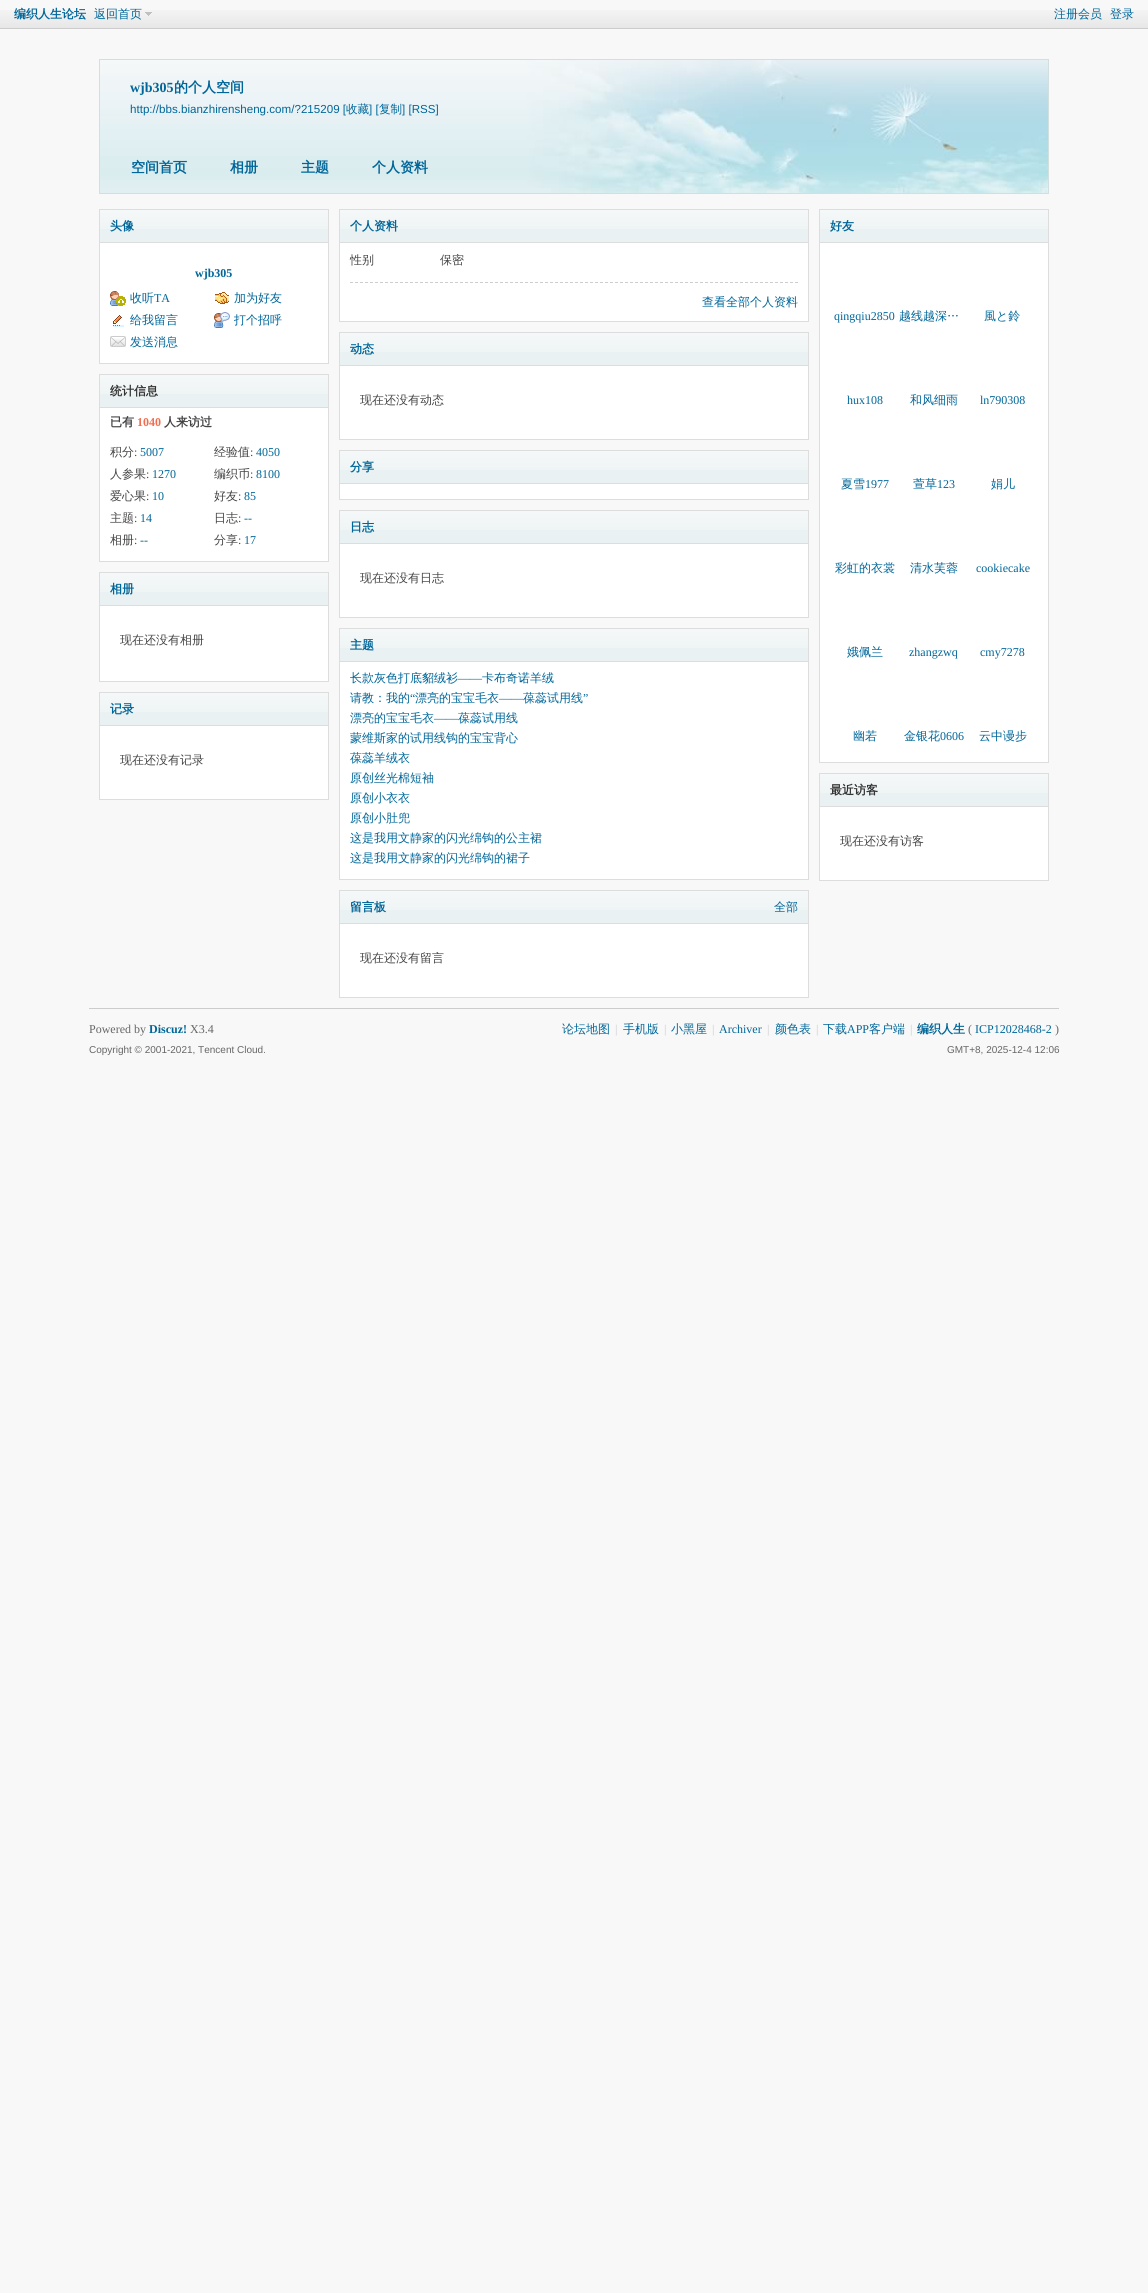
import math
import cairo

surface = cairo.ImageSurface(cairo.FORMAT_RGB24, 1148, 2293)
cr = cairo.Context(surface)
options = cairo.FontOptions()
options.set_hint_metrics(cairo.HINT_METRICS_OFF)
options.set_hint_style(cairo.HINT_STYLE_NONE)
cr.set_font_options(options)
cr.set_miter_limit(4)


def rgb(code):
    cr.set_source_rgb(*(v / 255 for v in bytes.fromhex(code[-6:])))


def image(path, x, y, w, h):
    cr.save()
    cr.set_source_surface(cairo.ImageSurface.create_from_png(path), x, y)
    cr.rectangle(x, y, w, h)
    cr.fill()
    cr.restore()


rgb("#f8f8f8")
cr.paint()
image("img/1.png", 0, 10, 1148, 18)
rgb("#cdcdcd")
cr.rectangle(0, 28, 1148, 1)
cr.fill()
image("img/2.png", 145, 12, 7, 4)
image("img/3.png", 100, 60, 948, 133)
cr.rectangle(99.5, 59.5, 949, 134)
rgb("#d3dfdf")
cr.set_line_width(1)
cr.stroke()
rgb("#ffffff")
cr.rectangle(100, 243, 228, 120)
cr.fill()
cr.rectangle(99.5, 209.5, 229, 154)
rgb("#dddddd")
cr.stroke()
rgb("#eaf1f2")
cr.rectangle(100, 229, 228, 13)
cr.fill()
image("img/4.png", 100, 210, 228, 19)
rgb("#dddddd")
cr.rectangle(100, 242, 228, 1)
cr.fill()
image("img/5.png", 110, 291, 16, 15)
image("img/6.png", 215, 292, 14, 12)
image("img/7.png", 113, 315, 11, 12)
image("img/8.png", 214, 312, 16, 16)
image("img/9.png", 110, 336, 16, 11)
rgb("#ffffff")
cr.rectangle(100, 408, 228, 153)
cr.fill()
cr.rectangle(99.5, 374.5, 229, 187)
rgb("#dddddd")
cr.stroke()
rgb("#eaf1f2")
cr.rectangle(100, 394, 228, 13)
cr.fill()
image("img/4.png", 100, 375, 228, 19)
rgb("#dddddd")
cr.rectangle(100, 407, 228, 1)
cr.fill()
rgb("#ffffff")
cr.rectangle(100, 606, 228, 75)
cr.fill()
cr.rectangle(99.5, 572.5, 229, 109)
rgb("#dddddd")
cr.stroke()
rgb("#eaf1f2")
cr.rectangle(100, 592, 228, 13)
cr.fill()
image("img/4.png", 100, 573, 228, 19)
rgb("#dddddd")
cr.rectangle(100, 605, 228, 1)
cr.fill()
rgb("#ffffff")
cr.rectangle(100, 726, 228, 73)
cr.fill()
cr.rectangle(99.5, 692.5, 229, 107)
rgb("#dddddd")
cr.stroke()
rgb("#eaf1f2")
cr.rectangle(100, 712, 228, 13)
cr.fill()
image("img/4.png", 100, 693, 228, 19)
rgb("#dddddd")
cr.rectangle(100, 725, 228, 1)
cr.fill()
rgb("#ffffff")
cr.rectangle(340, 243, 468, 78)
cr.fill()
cr.rectangle(339.5, 209.5, 469, 112)
rgb("#dddddd")
cr.stroke()
rgb("#eaf1f2")
cr.rectangle(340, 229, 468, 13)
cr.fill()
image("img/10.png", 340, 210, 468, 19)
rgb("#dddddd")
cr.rectangle(340, 242, 468, 1)
cr.fill()
cr.new_path()
cr.move_to(350, 282.5)
cr.line_to(798, 282.5)
rgb("#cdcdcd")
cr.set_dash([3, 2])
cr.stroke()
rgb("#ffffff")
cr.rectangle(340, 366, 468, 73)
cr.fill()
cr.rectangle(339.5, 332.5, 469, 107)
rgb("#dddddd")
cr.set_dash([])
cr.stroke()
rgb("#eaf1f2")
cr.rectangle(340, 352, 468, 13)
cr.fill()
image("img/10.png", 340, 333, 468, 19)
rgb("#dddddd")
cr.rectangle(340, 365, 468, 1)
cr.fill()
rgb("#ffffff")
cr.rectangle(340, 484, 468, 15)
cr.fill()
cr.rectangle(339.5, 450.5, 469, 49)
rgb("#dddddd")
cr.stroke()
rgb("#eaf1f2")
cr.rectangle(340, 470, 468, 13)
cr.fill()
image("img/10.png", 340, 451, 468, 19)
rgb("#dddddd")
cr.rectangle(340, 483, 468, 1)
cr.fill()
rgb("#ffffff")
cr.rectangle(340, 544, 468, 73)
cr.fill()
cr.rectangle(339.5, 510.5, 469, 107)
rgb("#dddddd")
cr.stroke()
rgb("#eaf1f2")
cr.rectangle(340, 530, 468, 13)
cr.fill()
image("img/10.png", 340, 511, 468, 19)
rgb("#dddddd")
cr.rectangle(340, 543, 468, 1)
cr.fill()
rgb("#ffffff")
cr.rectangle(340, 662, 468, 217)
cr.fill()
cr.rectangle(339.5, 628.5, 469, 251)
rgb("#dddddd")
cr.stroke()
rgb("#eaf1f2")
cr.rectangle(340, 648, 468, 13)
cr.fill()
image("img/10.png", 340, 629, 468, 19)
rgb("#dddddd")
cr.rectangle(340, 661, 468, 1)
cr.fill()
rgb("#ffffff")
cr.rectangle(340, 924, 468, 73)
cr.fill()
cr.rectangle(339.5, 890.5, 469, 107)
rgb("#dddddd")
cr.stroke()
rgb("#eaf1f2")
cr.rectangle(340, 910, 468, 13)
cr.fill()
image("img/10.png", 340, 891, 468, 19)
rgb("#dddddd")
cr.rectangle(340, 923, 468, 1)
cr.fill()
rgb("#ffffff")
cr.rectangle(820, 243, 228, 519)
cr.fill()
cr.rectangle(819.5, 209.5, 229, 553)
rgb("#dddddd")
cr.stroke()
rgb("#eaf1f2")
cr.rectangle(820, 229, 228, 13)
cr.fill()
image("img/4.png", 820, 210, 228, 19)
rgb("#dddddd")
cr.rectangle(820, 242, 228, 1)
cr.fill()
rgb("#ffffff")
cr.rectangle(820, 807, 228, 73)
cr.fill()
cr.rectangle(819.5, 773.5, 229, 107)
rgb("#dddddd")
cr.stroke()
rgb("#eaf1f2")
cr.rectangle(820, 793, 228, 13)
cr.fill()
image("img/4.png", 820, 774, 228, 19)
rgb("#dddddd")
cr.rectangle(820, 806, 228, 1)
cr.fill()
rgb("#cccccc")
cr.rectangle(89, 1008, 970, 1)
cr.fill()
cr.select_font_face("WenQuanYi Zen Hei", cairo.FONT_SLANT_NORMAL, cairo.FONT_WEIGHT_BOLD)
cr.set_font_size(12)
rgb("#006699")
cr.move_to(14, 18)
cr.show_text("编织人生论坛")
cr.select_font_face("WenQuanYi Zen Hei Medium")
for x, y, s in [
    (94, 18, "返回首页"),
    (1054, 18, "注册会员"),
    (1110, 18, "登录"),
]:
    cr.move_to(x, y)
    cr.show_text(s)
cr.select_font_face("Liberation Serif", cairo.FONT_SLANT_NORMAL, cairo.FONT_WEIGHT_BOLD)
cr.set_font_size(14)
cr.move_to(130, 92)
cr.show_text("wjb305")
cr.select_font_face("WenQuanYi Zen Hei", cairo.FONT_SLANT_NORMAL, cairo.FONT_WEIGHT_BOLD)
cr.move_to(174, 92)
cr.show_text("的个人空间")
cr.select_font_face("Liberation Sans")
cr.set_font_size(11.6)
cr.move_to(130, 113)
cr.show_text("http://bbs.bianzhirensheng.com/?215209 [")
cr.select_font_face("WenQuanYi Zen Hei Medium")
cr.move_to(346, 113)
cr.show_text("收藏")
cr.select_font_face("Liberation Sans")
cr.move_to(369, 113)
cr.show_text("] [")
cr.select_font_face("WenQuanYi Zen Hei Medium")
cr.move_to(379, 113)
cr.show_text("复制")
cr.select_font_face("Liberation Sans")
cr.move_to(402, 113)
cr.show_text("] [RSS]")
cr.select_font_face("WenQuanYi Zen Hei", cairo.FONT_SLANT_NORMAL, cairo.FONT_WEIGHT_BOLD)
cr.set_font_size(14)
for x, y, s in [
    (131, 172, "空间首页"),
    (230, 172, "相册"),
    (301, 172, "主题"),
    (372, 172, "个人资料"),
]:
    cr.move_to(x, y)
    cr.show_text(s)
cr.set_font_size(12)
cr.move_to(110, 230)
cr.show_text("头像")
cr.select_font_face("Liberation Serif", cairo.FONT_SLANT_NORMAL, cairo.FONT_WEIGHT_BOLD)
cr.move_to(195, 277)
cr.show_text("wjb305")
cr.select_font_face("WenQuanYi Zen Hei Medium")
cr.move_to(130, 302)
cr.show_text("收听")
cr.select_font_face("Liberation Serif")
cr.move_to(154, 302)
cr.show_text("TA")
cr.select_font_face("WenQuanYi Zen Hei Medium")
for x, y, s in [
    (234, 302, "加为好友"),
    (130, 324, "给我留言"),
    (234, 324, "打个招呼"),
    (130, 346, "发送消息"),
]:
    cr.move_to(x, y)
    cr.show_text(s)
cr.select_font_face("WenQuanYi Zen Hei", cairo.FONT_SLANT_NORMAL, cairo.FONT_WEIGHT_BOLD)
rgb("#333333")
cr.move_to(110, 395)
cr.show_text("统计信息")
rgb("#444444")
cr.move_to(110, 426)
cr.show_text("已有")
cr.select_font_face("Liberation Serif", cairo.FONT_SLANT_NORMAL, cairo.FONT_WEIGHT_BOLD)
rgb("#f26c4f")
cr.move_to(137, 426)
cr.show_text("1040")
cr.select_font_face("WenQuanYi Zen Hei", cairo.FONT_SLANT_NORMAL, cairo.FONT_WEIGHT_BOLD)
rgb("#444444")
cr.move_to(164, 426)
cr.show_text("人来访过")
cr.select_font_face("WenQuanYi Zen Hei Medium")
cr.move_to(110, 456)
cr.show_text("积分")
cr.select_font_face("Liberation Serif")
cr.move_to(134, 456)
cr.show_text(":")
rgb("#006699")
cr.move_to(140, 456)
cr.show_text("5007")
cr.select_font_face("WenQuanYi Zen Hei Medium")
rgb("#444444")
cr.move_to(214, 456)
cr.show_text("经验值")
cr.select_font_face("Liberation Serif")
cr.move_to(250, 456)
cr.show_text(":")
rgb("#006699")
cr.move_to(256, 456)
cr.show_text("4050")
cr.select_font_face("WenQuanYi Zen Hei Medium")
rgb("#444444")
cr.move_to(110, 478)
cr.show_text("人参果")
cr.select_font_face("Liberation Serif")
cr.move_to(146, 478)
cr.show_text(":")
rgb("#006699")
cr.move_to(152, 478)
cr.show_text("1270")
cr.select_font_face("WenQuanYi Zen Hei Medium")
rgb("#444444")
cr.move_to(214, 478)
cr.show_text("编织币")
cr.select_font_face("Liberation Serif")
cr.move_to(250, 478)
cr.show_text(":")
rgb("#006699")
cr.move_to(256, 478)
cr.show_text("8100")
cr.select_font_face("WenQuanYi Zen Hei Medium")
rgb("#444444")
cr.move_to(110, 500)
cr.show_text("爱心果")
cr.select_font_face("Liberation Serif")
cr.move_to(146, 500)
cr.show_text(":")
rgb("#006699")
cr.move_to(152, 500)
cr.show_text("10")
cr.select_font_face("WenQuanYi Zen Hei Medium")
rgb("#444444")
cr.move_to(214, 500)
cr.show_text("好友")
cr.select_font_face("Liberation Serif")
cr.move_to(238, 500)
cr.show_text(":")
rgb("#006699")
cr.move_to(244, 500)
cr.show_text("85")
cr.select_font_face("WenQuanYi Zen Hei Medium")
rgb("#444444")
cr.move_to(110, 522)
cr.show_text("主题")
cr.select_font_face("Liberation Serif")
cr.move_to(134, 522)
cr.show_text(":")
rgb("#006699")
cr.move_to(140, 522)
cr.show_text("14")
cr.select_font_face("WenQuanYi Zen Hei Medium")
rgb("#444444")
cr.move_to(214, 522)
cr.show_text("日志")
cr.select_font_face("Liberation Serif")
cr.move_to(238, 522)
cr.show_text(":")
rgb("#006699")
cr.move_to(244, 522)
cr.show_text("--")
cr.select_font_face("WenQuanYi Zen Hei Medium")
rgb("#444444")
cr.move_to(110, 544)
cr.show_text("相册")
cr.select_font_face("Liberation Serif")
cr.move_to(134, 544)
cr.show_text(":")
rgb("#006699")
cr.move_to(140, 544)
cr.show_text("--")
cr.select_font_face("WenQuanYi Zen Hei Medium")
rgb("#444444")
cr.move_to(214, 544)
cr.show_text("分享")
cr.select_font_face("Liberation Serif")
cr.move_to(238, 544)
cr.show_text(":")
rgb("#006699")
cr.move_to(244, 544)
cr.show_text("17")
cr.select_font_face("WenQuanYi Zen Hei", cairo.FONT_SLANT_NORMAL, cairo.FONT_WEIGHT_BOLD)
cr.move_to(110, 593)
cr.show_text("相册")
cr.select_font_face("WenQuanYi Zen Hei Medium")
rgb("#444444")
cr.move_to(120, 644)
cr.show_text("现在还没有相册")
cr.select_font_face("WenQuanYi Zen Hei", cairo.FONT_SLANT_NORMAL, cairo.FONT_WEIGHT_BOLD)
rgb("#006699")
cr.move_to(110, 713)
cr.show_text("记录")
cr.select_font_face("WenQuanYi Zen Hei Medium")
rgb("#444444")
cr.move_to(120, 764)
cr.show_text("现在还没有记录")
cr.select_font_face("WenQuanYi Zen Hei", cairo.FONT_SLANT_NORMAL, cairo.FONT_WEIGHT_BOLD)
rgb("#006699")
cr.move_to(350, 230)
cr.show_text("个人资料")
cr.select_font_face("WenQuanYi Zen Hei Medium")
rgb("#444444")
cr.move_to(350, 264)
cr.show_text("性别")
cr.move_to(440, 264)
cr.show_text("保密")
rgb("#006699")
cr.move_to(702, 306)
cr.show_text("查看全部个人资料")
cr.select_font_face("WenQuanYi Zen Hei", cairo.FONT_SLANT_NORMAL, cairo.FONT_WEIGHT_BOLD)
cr.move_to(350, 353)
cr.show_text("动态")
cr.select_font_face("WenQuanYi Zen Hei Medium")
rgb("#444444")
cr.move_to(360, 404)
cr.show_text("现在还没有动态")
cr.select_font_face("WenQuanYi Zen Hei", cairo.FONT_SLANT_NORMAL, cairo.FONT_WEIGHT_BOLD)
rgb("#006699")
cr.move_to(350, 471)
cr.show_text("分享")
cr.move_to(350, 531)
cr.show_text("日志")
cr.select_font_face("WenQuanYi Zen Hei Medium")
rgb("#444444")
cr.move_to(360, 582)
cr.show_text("现在还没有日志")
cr.select_font_face("WenQuanYi Zen Hei", cairo.FONT_SLANT_NORMAL, cairo.FONT_WEIGHT_BOLD)
rgb("#006699")
cr.move_to(350, 649)
cr.show_text("主题")
cr.select_font_face("WenQuanYi Zen Hei Medium")
cr.move_to(350, 682)
cr.show_text("长款灰色打底貂绒衫")
cr.select_font_face("Liberation Serif")
cr.move_to(458, 682)
cr.show_text("——")
cr.select_font_face("WenQuanYi Zen Hei Medium")
cr.move_to(482, 682)
cr.show_text("卡布奇诺羊绒")
cr.move_to(350, 702)
cr.show_text("请教：我的")
cr.select_font_face("Liberation Serif")
cr.move_to(410, 702)
cr.show_text("“")
cr.select_font_face("WenQuanYi Zen Hei Medium")
cr.move_to(415, 702)
cr.show_text("漂亮的宝宝毛衣")
cr.select_font_face("Liberation Serif")
cr.move_to(583, 702)
cr.show_text("”")
cr.move_to(499, 702)
cr.show_text("——")
cr.select_font_face("WenQuanYi Zen Hei Medium")
cr.move_to(523, 702)
cr.show_text("葆蕊试用线")
cr.move_to(350, 722)
cr.show_text("漂亮的宝宝毛衣")
cr.select_font_face("Liberation Serif")
cr.move_to(434, 722)
cr.show_text("——")
cr.select_font_face("WenQuanYi Zen Hei Medium")
for x, y, s in [
    (458, 722, "葆蕊试用线"),
    (350, 742, "蒙维斯家的试用线钩的宝宝背心"),
    (350, 762, "葆蕊羊绒衣"),
    (350, 782, "原创丝光棉短袖"),
    (350, 802, "原创小衣衣"),
    (350, 822, "原创小肚兜"),
    (350, 842, "这是我用文静家的闪光绵钩的公主裙"),
    (350, 862, "这是我用文静家的闪光绵钩的裙子"),
]:
    cr.move_to(x, y)
    cr.show_text(s)
cr.select_font_face("WenQuanYi Zen Hei", cairo.FONT_SLANT_NORMAL, cairo.FONT_WEIGHT_BOLD)
cr.move_to(350, 911)
cr.show_text("留言板")
cr.select_font_face("WenQuanYi Zen Hei Medium")
cr.move_to(774, 911)
cr.show_text("全部")
rgb("#444444")
cr.move_to(360, 962)
cr.show_text("现在还没有留言")
cr.select_font_face("WenQuanYi Zen Hei", cairo.FONT_SLANT_NORMAL, cairo.FONT_WEIGHT_BOLD)
rgb("#006699")
cr.move_to(830, 230)
cr.show_text("好友")
cr.select_font_face("Liberation Serif")
cr.move_to(834, 320)
cr.show_text("qingqiu2850")
cr.select_font_face("WenQuanYi Zen Hei Medium")
cr.move_to(899, 320)
cr.show_text("越线越深…")
cr.move_to(984, 320)
cr.show_text("風と鈴")
cr.select_font_face("Liberation Serif")
cr.move_to(847, 404)
cr.show_text("hux108")
cr.select_font_face("WenQuanYi Zen Hei Medium")
cr.move_to(910, 404)
cr.show_text("和风细雨")
cr.select_font_face("Liberation Serif")
cr.move_to(980, 404)
cr.show_text("ln790308")
cr.select_font_face("WenQuanYi Zen Hei Medium")
cr.move_to(841, 488)
cr.show_text("夏雪")
cr.select_font_face("Liberation Serif")
cr.move_to(865, 488)
cr.show_text("1977")
cr.select_font_face("WenQuanYi Zen Hei Medium")
cr.move_to(913, 488)
cr.show_text("萱草")
cr.select_font_face("Liberation Serif")
cr.move_to(937, 488)
cr.show_text("123")
cr.select_font_face("WenQuanYi Zen Hei Medium")
for x, y, s in [
    (991, 488, "娟儿"),
    (835, 572, "彩虹的衣裳"),
    (910, 572, "清水芙蓉"),
]:
    cr.move_to(x, y)
    cr.show_text(s)
cr.select_font_face("Liberation Serif")
cr.move_to(976, 572)
cr.show_text("cookiecake")
cr.select_font_face("WenQuanYi Zen Hei Medium")
cr.move_to(847, 656)
cr.show_text("娥佩兰")
cr.select_font_face("Liberation Serif")
cr.move_to(909, 656)
cr.show_text("zhangzwq")
cr.move_to(980, 656)
cr.show_text("cmy7278")
cr.select_font_face("WenQuanYi Zen Hei Medium")
cr.move_to(853, 740)
cr.show_text("幽若")
cr.move_to(904, 740)
cr.show_text("金银花")
cr.select_font_face("Liberation Serif")
cr.move_to(940, 740)
cr.show_text("0606")
cr.select_font_face("WenQuanYi Zen Hei Medium")
cr.move_to(979, 740)
cr.show_text("云中谩步")
cr.select_font_face("WenQuanYi Zen Hei", cairo.FONT_SLANT_NORMAL, cairo.FONT_WEIGHT_BOLD)
rgb("#333333")
cr.move_to(830, 794)
cr.show_text("最近访客")
cr.select_font_face("WenQuanYi Zen Hei Medium")
rgb("#444444")
cr.move_to(840, 845)
cr.show_text("现在还没有访客")
cr.select_font_face("Liberation Serif")
rgb("#666666")
cr.move_to(89, 1033)
cr.show_text("Powered by")
cr.select_font_face("Liberation Serif", cairo.FONT_SLANT_NORMAL, cairo.FONT_WEIGHT_BOLD)
rgb("#006699")
cr.move_to(149, 1033)
cr.show_text("Discuz!")
cr.select_font_face("Liberation Serif")
rgb("#666666")
cr.move_to(190, 1033)
cr.show_text("X3.4")
cr.select_font_face("Liberation Sans")
cr.set_font_size(10)
cr.move_to(89, 1053)
cr.show_text("Copyright © 2001-2021, Tencent Cloud.")
cr.select_font_face("WenQuanYi Zen Hei Medium")
cr.set_font_size(12)
rgb("#006699")
cr.move_to(562, 1033)
cr.show_text("论坛地图")
cr.select_font_face("Liberation Serif")
rgb("#cccccc")
cr.move_to(615, 1033)
cr.show_text("|")
cr.select_font_face("WenQuanYi Zen Hei Medium")
rgb("#006699")
cr.move_to(623, 1033)
cr.show_text("手机版")
cr.select_font_face("Liberation Serif")
rgb("#cccccc")
cr.move_to(664, 1033)
cr.show_text("|")
cr.select_font_face("WenQuanYi Zen Hei Medium")
rgb("#006699")
cr.move_to(671, 1033)
cr.show_text("小黑屋")
cr.select_font_face("Liberation Serif")
rgb("#cccccc")
cr.move_to(712, 1033)
cr.show_text("|")
rgb("#006699")
cr.move_to(719, 1033)
cr.show_text("Archiver")
rgb("#cccccc")
cr.move_to(767, 1033)
cr.show_text("|")
cr.select_font_face("WenQuanYi Zen Hei Medium")
rgb("#006699")
cr.move_to(775, 1033)
cr.show_text("颜色表")
cr.select_font_face("Liberation Serif")
rgb("#cccccc")
cr.move_to(816, 1033)
cr.show_text("|")
cr.select_font_face("WenQuanYi Zen Hei Medium")
rgb("#006699")
cr.move_to(823, 1033)
cr.show_text("下载")
cr.select_font_face("Liberation Serif")
cr.move_to(847, 1033)
cr.show_text("APP")
cr.select_font_face("WenQuanYi Zen Hei Medium")
cr.move_to(869, 1033)
cr.show_text("客户端")
cr.select_font_face("Liberation Serif")
rgb("#cccccc")
cr.move_to(910, 1033)
cr.show_text("|")
cr.select_font_face("WenQuanYi Zen Hei", cairo.FONT_SLANT_NORMAL, cairo.FONT_WEIGHT_BOLD)
rgb("#006699")
cr.move_to(917, 1033)
cr.show_text("编织人生")
cr.select_font_face("Liberation Serif")
rgb("#666666")
cr.move_to(968, 1033)
cr.show_text("(")
rgb("#006699")
cr.move_to(975, 1033)
cr.show_text("ICP12028468-2")
rgb("#666666")
cr.move_to(1055, 1033)
cr.show_text(")")
cr.select_font_face("Liberation Sans")
cr.set_font_size(10)
cr.move_to(947, 1053)
cr.show_text("GMT+8, 2025-12-4 12:06")
surface.write_to_png("page.png")
